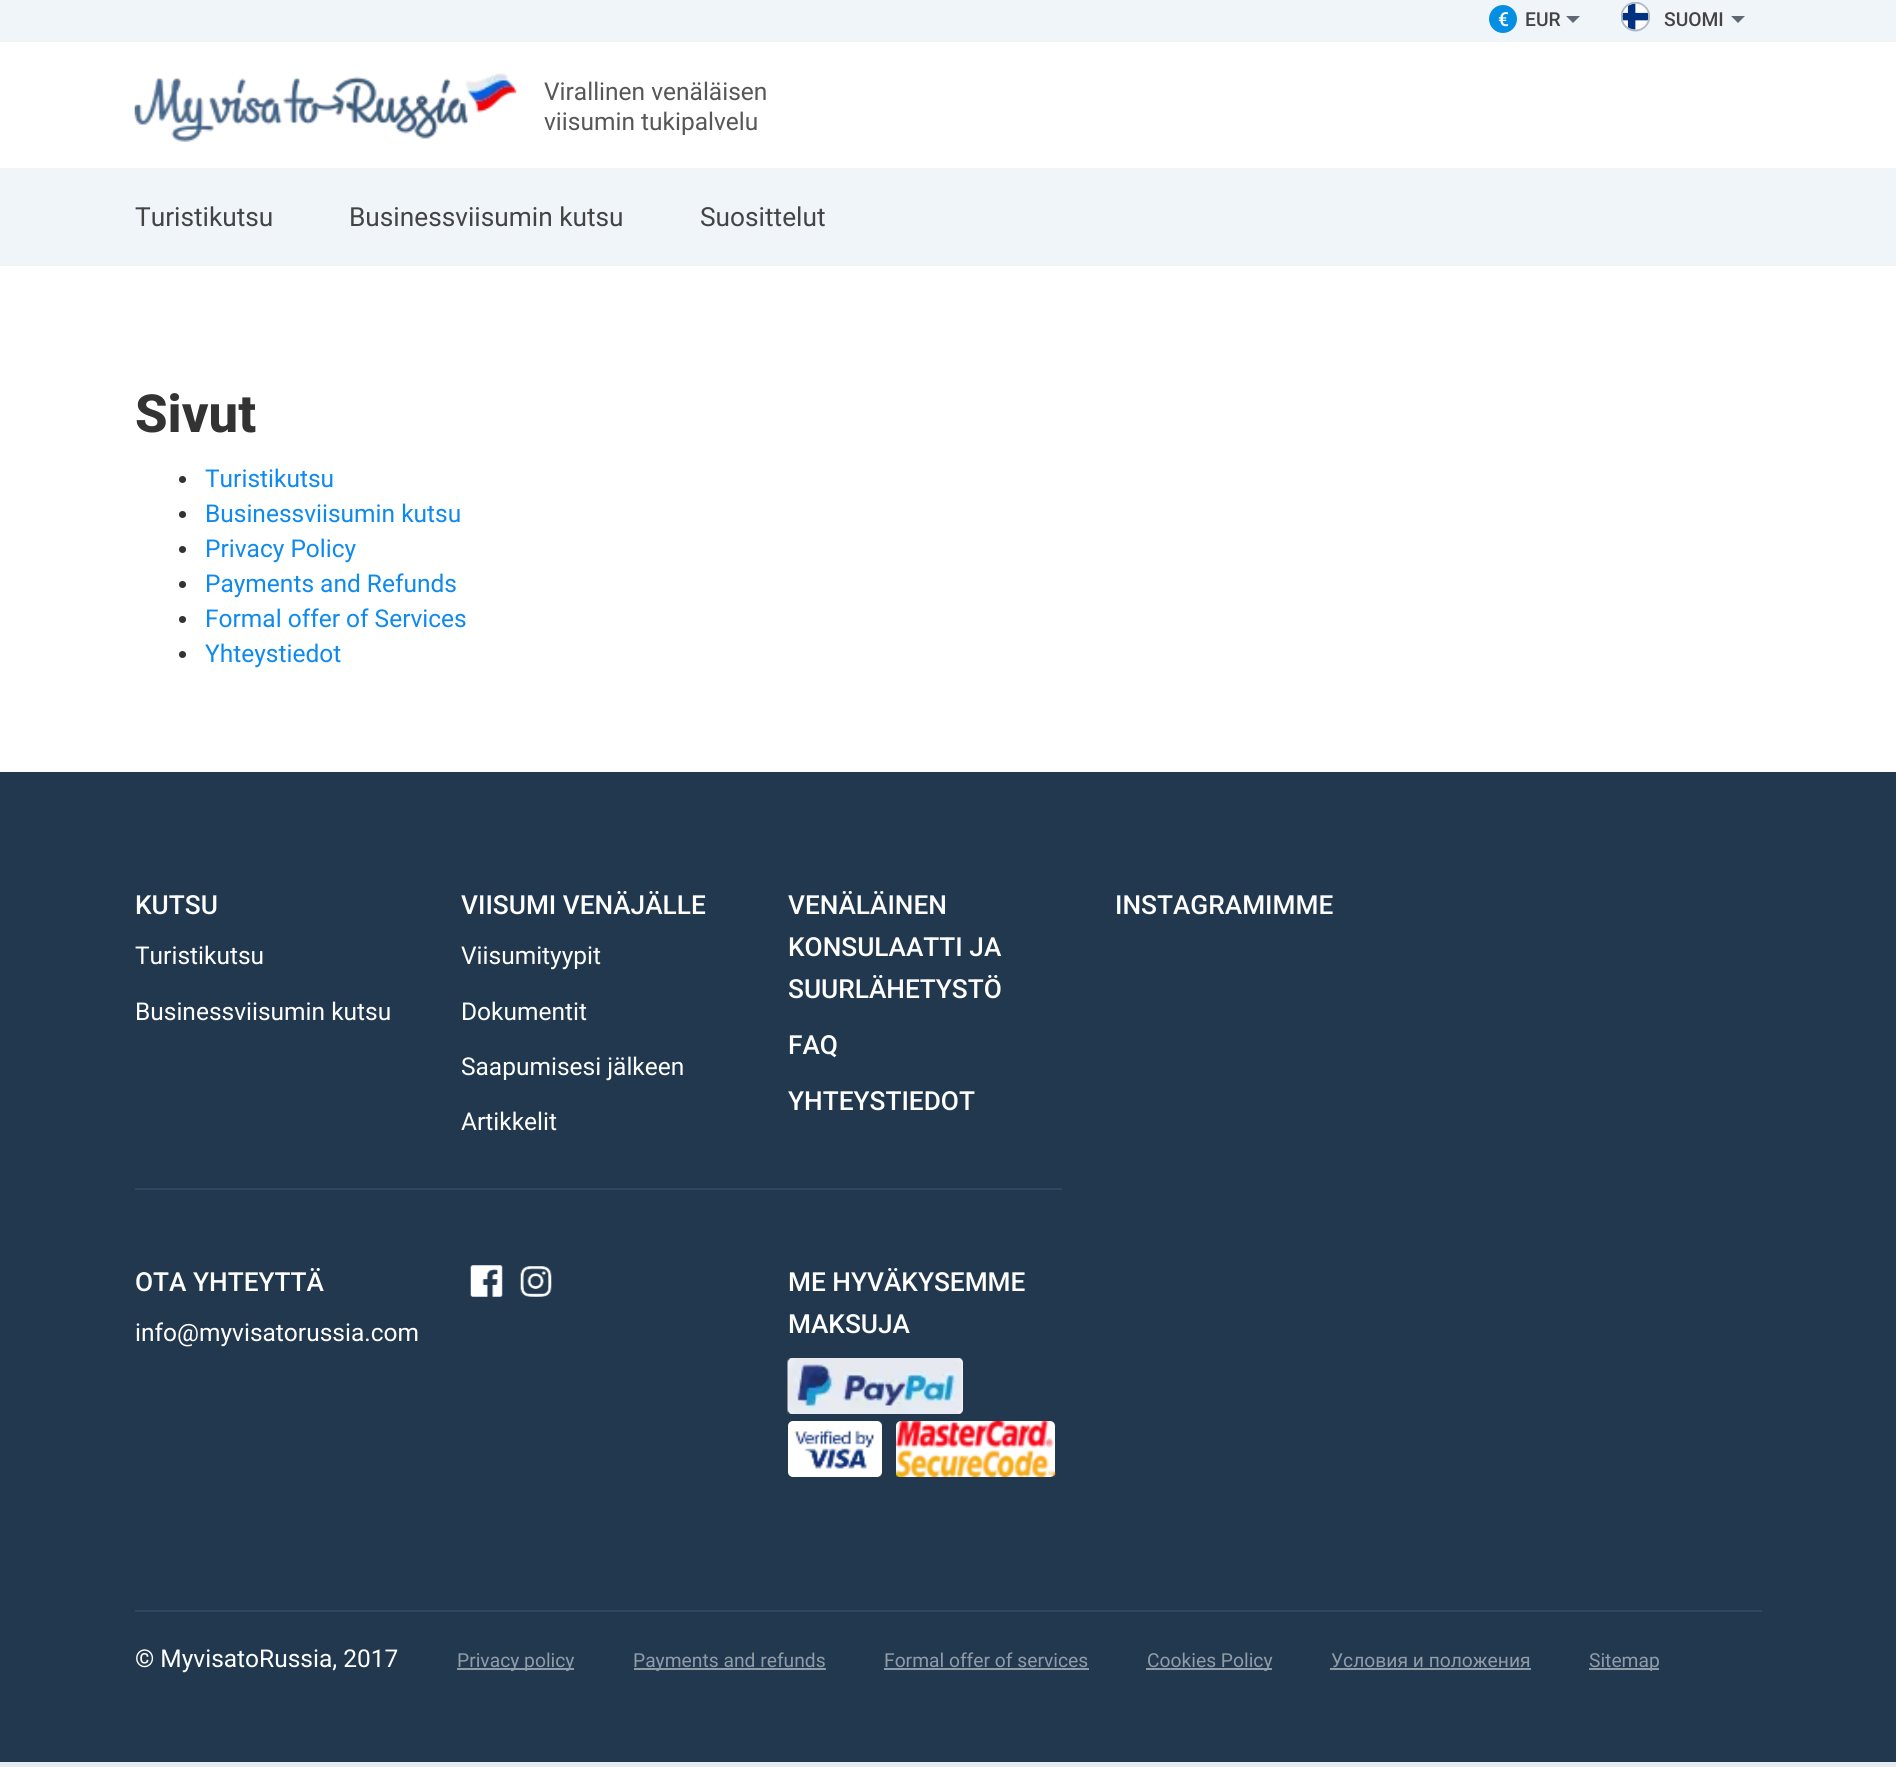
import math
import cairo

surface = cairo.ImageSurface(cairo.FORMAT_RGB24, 1896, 1767)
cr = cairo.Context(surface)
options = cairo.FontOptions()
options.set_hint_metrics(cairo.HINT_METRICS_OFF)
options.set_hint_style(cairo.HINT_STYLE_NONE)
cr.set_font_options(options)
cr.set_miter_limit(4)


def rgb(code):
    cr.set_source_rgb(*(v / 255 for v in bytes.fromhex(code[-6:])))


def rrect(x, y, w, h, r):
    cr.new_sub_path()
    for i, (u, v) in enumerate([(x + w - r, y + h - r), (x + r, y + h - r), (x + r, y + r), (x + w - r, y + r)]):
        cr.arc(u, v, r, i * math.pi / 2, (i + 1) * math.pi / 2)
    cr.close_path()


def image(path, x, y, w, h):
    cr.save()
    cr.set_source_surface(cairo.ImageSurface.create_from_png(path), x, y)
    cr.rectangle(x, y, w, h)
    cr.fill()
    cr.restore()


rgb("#e6ebf0")
cr.paint()
rgb("#ffffff")
cr.rectangle(0, 42, 1896, 126)
cr.fill()
rgb("#f0f5fa")
cr.rectangle(0, 0, 1896, 42)
cr.fill()
rgb("#058fe2")
cr.arc(1503, 19, 14, 0, 2 * math.pi)
cr.fill()
rgb("#5f6973")
cr.new_path()
cr.move_to(1566, 16)
cr.line_to(1580, 16)
cr.line_to(1573, 23)
cr.close_path()
cr.fill()
image("img/1.png", 1621, 2, 29, 30)
cr.new_path()
cr.move_to(1731, 16)
cr.line_to(1745, 16)
cr.line_to(1738, 23)
cr.close_path()
cr.fill()
image("img/2.png", 134, 73, 383, 69)
rgb("#f0f5fa")
cr.rectangle(0, 168, 1896, 98)
cr.fill()
rgb("#ffffff")
cr.rectangle(0, 266, 1896, 506)
cr.fill()
rgb("#333333")
cr.arc(182.5, 479.5, 3.5, 0, 2 * math.pi)
cr.fill()
cr.arc(182.5, 514.5, 3.5, 0, 2 * math.pi)
cr.fill()
cr.arc(182.5, 549.5, 3.5, 0, 2 * math.pi)
cr.fill()
cr.arc(182.5, 584.5, 3.5, 0, 2 * math.pi)
cr.fill()
cr.arc(182.5, 619.5, 3.5, 0, 2 * math.pi)
cr.fill()
cr.arc(182.5, 654.5, 3.5, 0, 2 * math.pi)
cr.fill()
rgb("#21384e")
cr.rectangle(0, 772, 1896, 990)
cr.fill()
rgb("#2c4761")
cr.rectangle(135, 1188, 927, 2)
cr.fill()
image("img/3.png", 470, 1265, 33, 32)
image("img/4.png", 520, 1266, 32, 31)
rgb("#ffffff")
rrect(788, 1358, 175, 56, 5)
cr.fill()
image("img/5.png", 787, 1358, 176, 56)
rrect(788, 1421, 94, 56, 5)
cr.fill()
image("img/6.png", 794, 1429, 81, 40)
rrect(896, 1421, 159, 56, 5)
cr.fill()
image("img/7.png", 896, 1421, 160, 56)
for x, y, w, h, color in [
    (135, 1610, 1627, 2, "#2c4761"),
    (457, 1668, 117, 2, "#909ca7"),
    (634, 1668, 192, 2, "#909ca7"),
    (884, 1668, 205, 2, "#909ca7"),
    (1146, 1668, 126, 2, "#909ca7"),
    (1330, 1668, 201, 2, "#909ca7"),
    (1589, 1668, 70, 2, "#909ca7"),
]:
    rgb(color)
    cr.rectangle(x, y, w, h)
    cr.fill()
cr.select_font_face("Roboto Medium")
cr.set_font_size(19.25)
rgb("#ffffff")
cr.move_to(1498, 26)
cr.show_text("€")
rgb("#444444")
cr.move_to(1525, 26)
cr.show_text("EUR")
cr.move_to(1664, 26)
cr.show_text("SUOMI")
cr.select_font_face("Roboto")
cr.set_font_size(24.5)
rgb("#575757")
cr.move_to(544, 100)
cr.show_text("Virallinen venäläisen")
cr.move_to(544, 130)
cr.show_text("viisumin tukipalvelu")
cr.set_font_size(26.25)
rgb("#444444")
for x, y, s in [
    (135, 226, "Turistikutsu"),
    (349, 226, "Businessviisumin kutsu"),
    (700, 226, "Suosittelut"),
]:
    cr.move_to(x, y)
    cr.show_text(s)
cr.select_font_face("Roboto ExtraBold")
cr.set_font_size(52.5)
rgb("#333333")
cr.move_to(135, 432)
cr.show_text("Sivut")
cr.select_font_face("Roboto")
cr.set_font_size(24.5)
rgb("#0e8aef")
for x, y, s in [
    (205, 487, "Turistikutsu"),
    (205, 522, "Businessviisumin kutsu"),
    (205, 557, "Privacy Policy"),
    (205, 592, "Payments and Refunds"),
    (205, 627, "Formal offer of Services"),
    (205, 662, "Yhteystiedot"),
]:
    cr.move_to(x, y)
    cr.show_text(s)
cr.select_font_face("Roboto Medium")
cr.set_font_size(26.25)
rgb("#ffffff")
cr.move_to(135, 914)
cr.show_text("KUTSU")
cr.select_font_face("Roboto")
cr.set_font_size(24.5)
cr.move_to(135, 964)
cr.show_text("Turistikutsu")
cr.move_to(135, 1020)
cr.show_text("Businessviisumin kutsu")
cr.select_font_face("Roboto Medium")
cr.set_font_size(26.25)
cr.move_to(461, 914)
cr.show_text("VIISUMI VENÄJÄLLE")
cr.select_font_face("Roboto")
cr.set_font_size(24.5)
for x, y, s in [
    (461, 964, "Viisumityypit"),
    (461, 1020, "Dokumentit"),
    (461, 1075, "Saapumisesi jälkeen"),
    (461, 1130, "Artikkelit"),
]:
    cr.move_to(x, y)
    cr.show_text(s)
cr.select_font_face("Roboto Medium")
cr.set_font_size(26.25)
for x, y, s in [
    (788, 914, "VENÄLÄINEN"),
    (788, 956, "KONSULAATTI JA"),
    (788, 998, "SUURLÄHETYSTÖ"),
    (788, 1054, "FAQ"),
    (788, 1110, "YHTEYSTIEDOT"),
    (135, 1291, "OTA YHTEYTTÄ"),
]:
    cr.move_to(x, y)
    cr.show_text(s)
cr.select_font_face("Roboto")
cr.set_font_size(24.5)
cr.move_to(135, 1341)
cr.show_text("info@myvisatorussia.com")
cr.select_font_face("Roboto Medium")
cr.set_font_size(26.25)
for x, y, s in [
    (788, 1291, "ME HYVÄKYSEMME"),
    (788, 1333, "MAKSUJA"),
    (1115, 914, "INSTAGRAMIMME"),
]:
    cr.move_to(x, y)
    cr.show_text(s)
cr.select_font_face("Roboto")
cr.set_font_size(24.5)
cr.move_to(135, 1667)
cr.show_text("© MyvisatoRussia, 2017")
cr.set_font_size(19.25)
rgb("#909ca7")
for x, y, s in [
    (457, 1667, "Privacy policy"),
    (633, 1667, "Payments and refunds"),
    (884, 1667, "Formal offer of services"),
    (1147, 1667, "Cookies Policy"),
    (1331, 1667, "Условия и положения"),
    (1589, 1667, "Sitemap"),
]:
    cr.move_to(x, y)
    cr.show_text(s)
surface.write_to_png("page.png")
